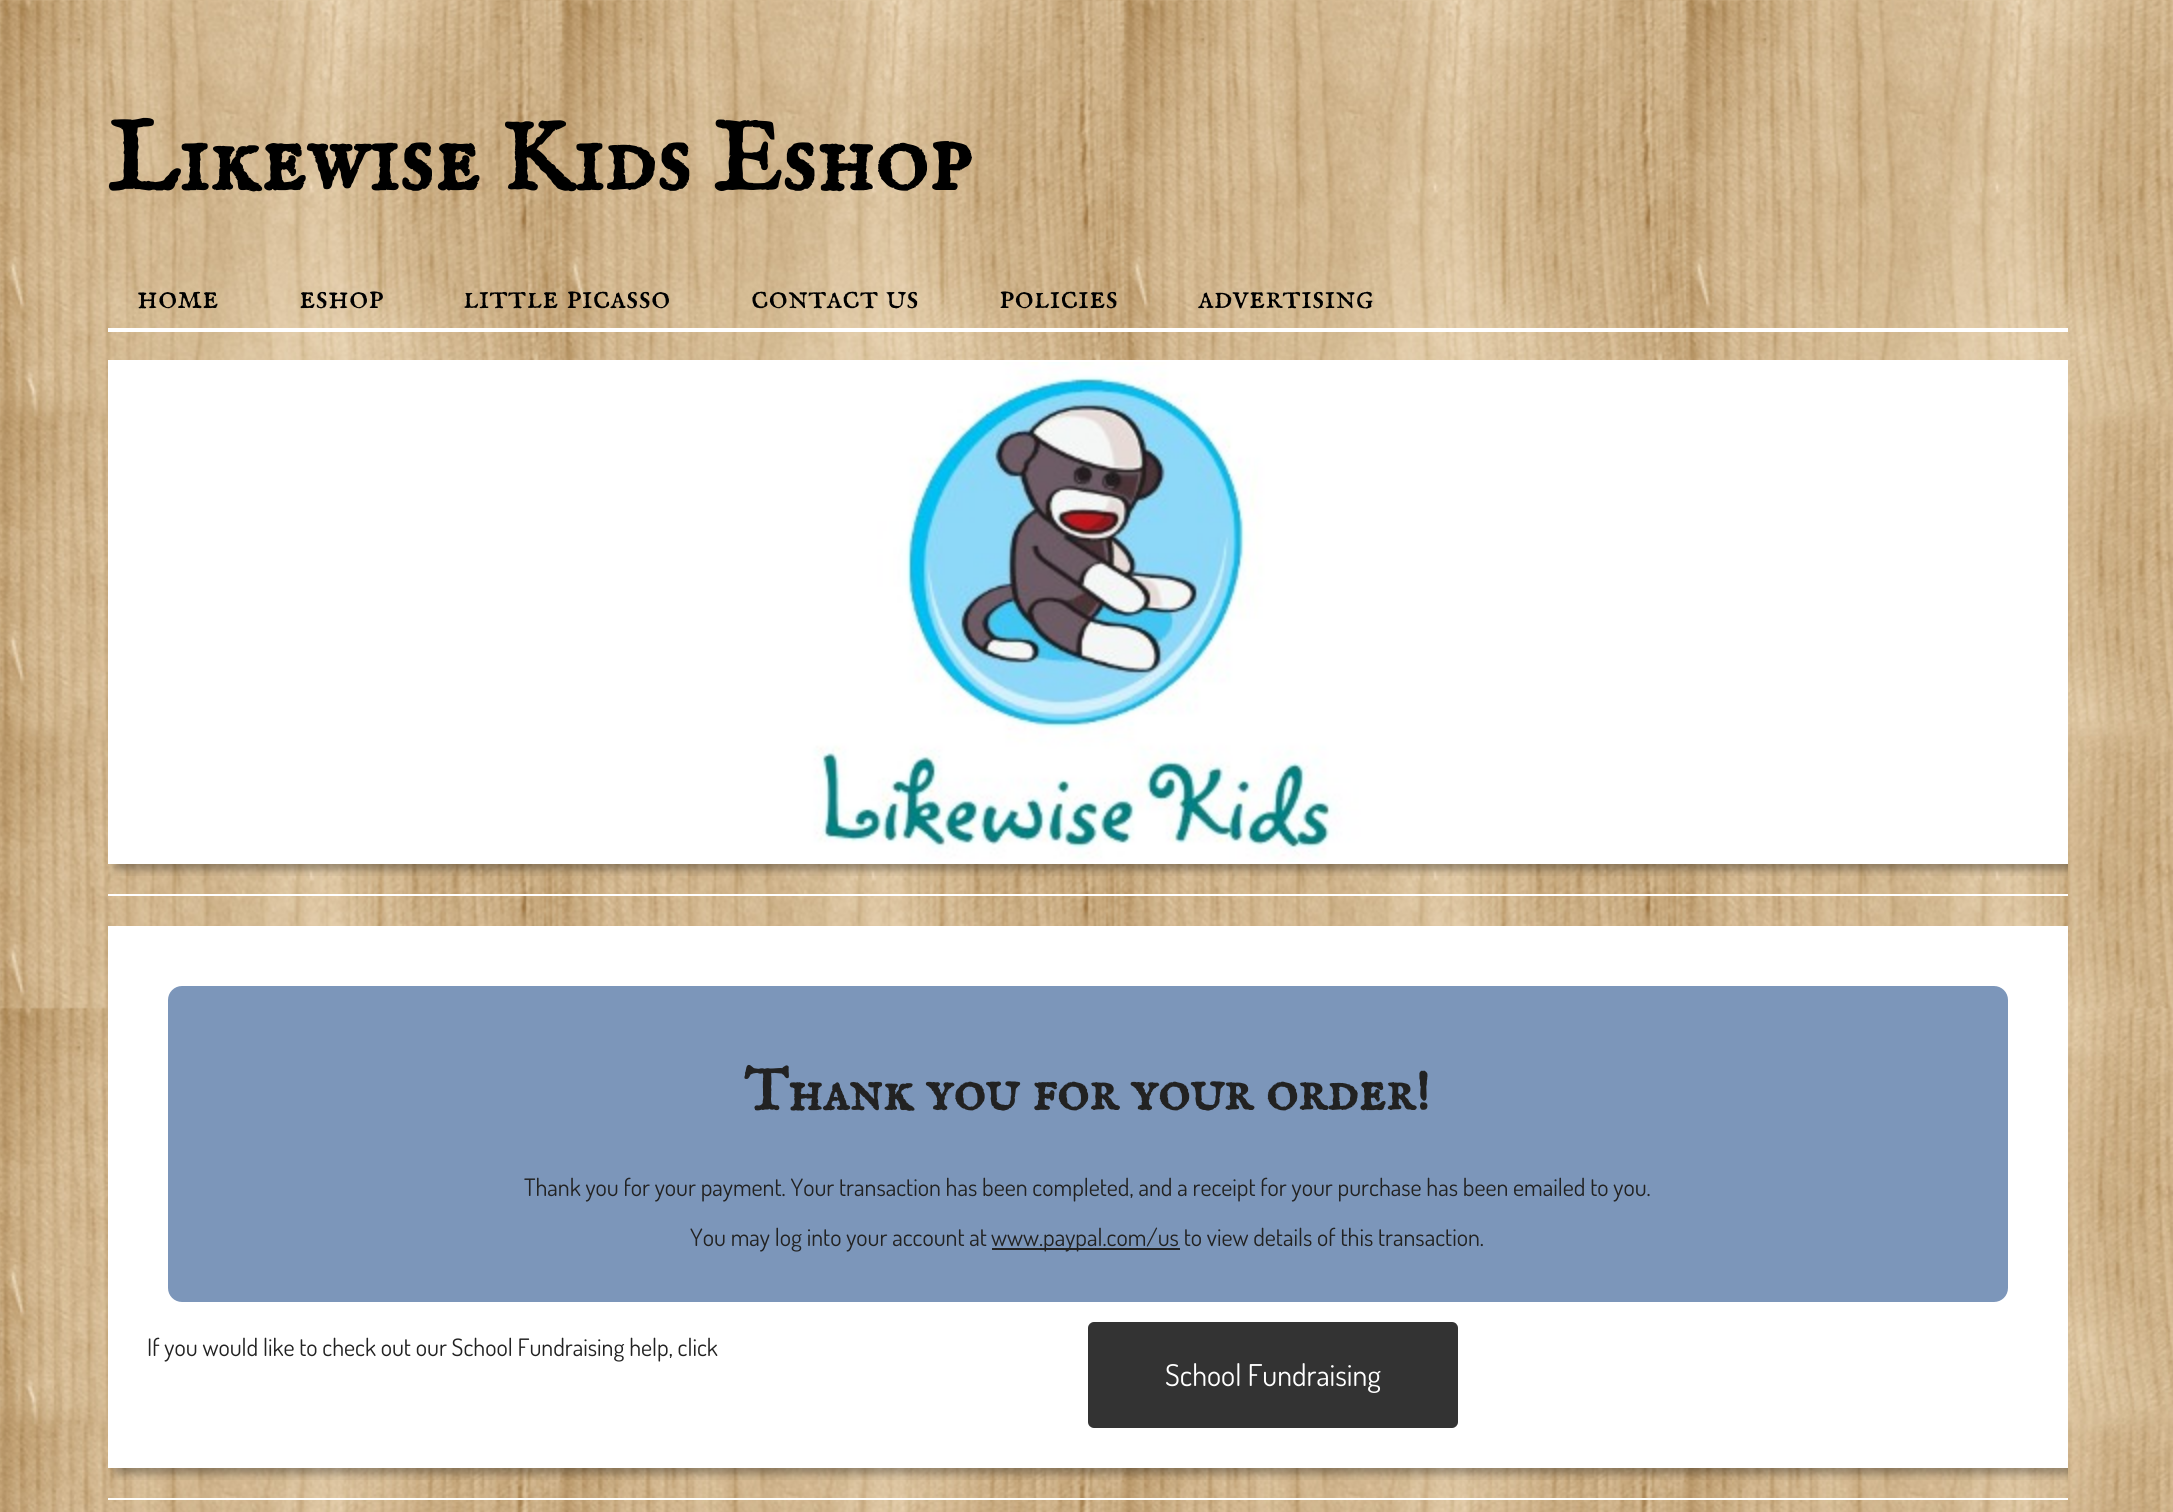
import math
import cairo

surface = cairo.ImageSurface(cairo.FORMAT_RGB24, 2173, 1512)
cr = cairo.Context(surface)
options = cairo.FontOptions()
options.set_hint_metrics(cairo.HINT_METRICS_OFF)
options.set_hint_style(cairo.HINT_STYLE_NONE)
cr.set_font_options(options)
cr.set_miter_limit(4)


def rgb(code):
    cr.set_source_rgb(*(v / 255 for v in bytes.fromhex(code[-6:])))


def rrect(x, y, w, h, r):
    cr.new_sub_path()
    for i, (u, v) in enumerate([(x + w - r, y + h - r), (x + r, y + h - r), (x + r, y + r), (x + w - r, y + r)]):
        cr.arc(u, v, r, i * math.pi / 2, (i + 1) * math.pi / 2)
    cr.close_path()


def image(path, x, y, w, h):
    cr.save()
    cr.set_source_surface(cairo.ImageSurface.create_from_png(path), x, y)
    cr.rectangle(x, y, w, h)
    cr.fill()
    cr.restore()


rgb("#ffffff")
cr.paint()
image("img/1.png", 0, 0, 2173, 1512)
rgb("#ffffff")
cr.rectangle(108, 328, 1960, 4)
cr.fill()
image("img/2.png", 110, 362, 1956, 500)
cr.rectangle(109, 361, 1958, 502)
cr.stroke()
image("img/3.png", 108, 864, 1960, 12)
cr.rectangle(108, 894, 1960, 2)
cr.fill()
cr.rectangle(108, 926, 1960, 542)
cr.fill()
rgb("#7c96ba")
rrect(168, 986, 1840, 316, 14)
cr.fill()
rgb("#222222")
cr.rectangle(992, 1248, 188, 2)
cr.fill()
rgb("#333333")
rrect(1090, 1324, 366, 102, 4)
cr.fill_preserve()
cr.set_line_width(4)
cr.stroke()
image("img/4.png", 108, 1468, 1960, 12)
rgb("#ffffff")
cr.rectangle(108, 1498, 1960, 2)
cr.fill()
cr.select_font_face("IM FELL English SC", cairo.FONT_SLANT_NORMAL, cairo.FONT_WEIGHT_BOLD)
cr.set_font_size(100)
rgb("#000000")
cr.move_to(107, 190)
cr.show_text("Likewise Kids Eshop")
cr.select_font_face("IM FELL English SC")
cr.set_font_size(36)
for x, y, s in [
    (137, 308, "home"),
    (299, 308, "eshop"),
    (463, 308, "little picasso"),
    (751, 308, "contact us"),
    (999, 308, "policies"),
    (1198, 308, "advertising"),
]:
    cr.move_to(x, y)
    cr.show_text(s)
cr.select_font_face("IM FELL English SC", cairo.FONT_SLANT_NORMAL, cairo.FONT_WEIGHT_BOLD)
cr.set_font_size(60)
rgb("#222222")
cr.move_to(744, 1110)
cr.show_text("Thank you for your order!")
cr.select_font_face("Dosis")
cr.set_font_size(24)
for x, y, s in [
    (524, 1196, "Thank you for your payment. Your transaction has been completed, and a receipt for your purchase has been emailed to you."),
    (690, 1246, "You may log into your account at"),
    (991, 1246, "www.paypal.com/us to view details of this transaction."),
    (147, 1356, "If you would like to check out our School Fundraising help, click"),
]:
    cr.move_to(x, y)
    cr.show_text(s)
cr.set_font_size(30)
rgb("#ffffff")
cr.move_to(1165, 1386)
cr.show_text("School Fundraising")
surface.write_to_png("page.png")
